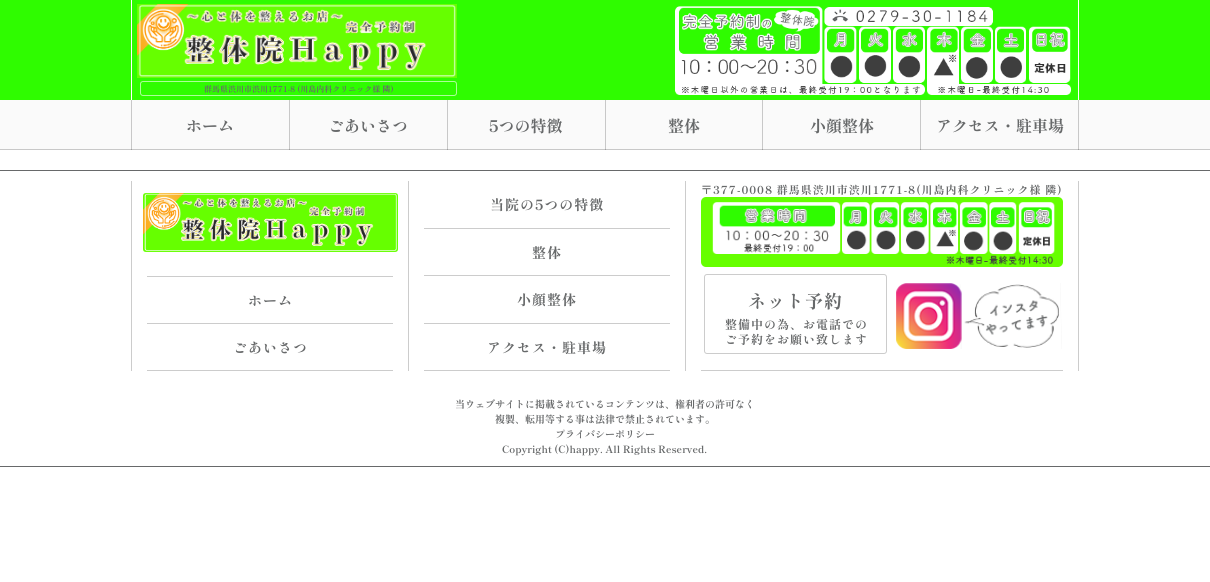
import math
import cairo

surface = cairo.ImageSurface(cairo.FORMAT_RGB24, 1210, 582)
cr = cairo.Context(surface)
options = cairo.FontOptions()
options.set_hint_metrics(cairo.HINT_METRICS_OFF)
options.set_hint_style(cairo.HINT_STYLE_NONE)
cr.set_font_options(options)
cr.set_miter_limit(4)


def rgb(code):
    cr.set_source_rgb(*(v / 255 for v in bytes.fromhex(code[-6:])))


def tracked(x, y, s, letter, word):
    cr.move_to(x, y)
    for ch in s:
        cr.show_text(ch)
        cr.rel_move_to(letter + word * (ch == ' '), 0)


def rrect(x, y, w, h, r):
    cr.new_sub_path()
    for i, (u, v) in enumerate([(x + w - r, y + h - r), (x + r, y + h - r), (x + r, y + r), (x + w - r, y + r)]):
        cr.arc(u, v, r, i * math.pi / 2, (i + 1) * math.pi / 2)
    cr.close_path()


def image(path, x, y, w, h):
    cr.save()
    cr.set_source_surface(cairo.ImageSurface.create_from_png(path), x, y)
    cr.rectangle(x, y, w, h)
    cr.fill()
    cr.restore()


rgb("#ffffff")
cr.paint()
for x, y, w, h, color in [
    (0, 0, 1210, 100, "#2ffc00"),
    (1078, 0, 1, 100, "#ffffff"),
    (131, 0, 1, 100, "#ffffff"),
]:
    rgb(color)
    cr.rectangle(x, y, w, h)
    cr.fill()
image("img/1.png", 137, 4, 320, 74)
rrect(140.5, 81.5, 316, 14, 2.5)
rgb("#acfe99")
cr.set_line_width(1)
cr.stroke()
image("img/2.png", 675, 6, 396, 89)
for x, y, w, h, color in [
    (0, 100, 1210, 49, "#fafafa"),
    (920, 100, 1, 50, "#c8c8c8"),
    (1078, 100, 1, 50, "#c8c8c8"),
    (762, 100, 1, 50, "#c8c8c8"),
    (605, 100, 1, 50, "#c8c8c8"),
    (447, 100, 1, 50, "#c8c8c8"),
    (289, 100, 1, 50, "#c8c8c8"),
    (131, 100, 1, 50, "#c8c8c8"),
    (0, 149, 1210, 1, "#c8c8c8"),
    (920, 149, 1, 1, "#a0a0a0"),
    (1078, 149, 1, 1, "#a0a0a0"),
    (762, 149, 1, 1, "#a0a0a0"),
    (605, 149, 1, 1, "#a0a0a0"),
    (447, 149, 1, 1, "#a0a0a0"),
    (289, 149, 1, 1, "#a0a0a0"),
    (131, 149, 1, 1, "#a0a0a0"),
    (0, 170, 1210, 1, "#67696a"),
    (0, 466, 1210, 1, "#67696a"),
    (1078, 181, 1, 190, "#cccccc"),
    (131, 181, 1, 190, "#cccccc"),
    (408, 181, 1, 190, "#cccccc"),
]:
    rgb(color)
    cr.rectangle(x, y, w, h)
    cr.fill()
image("img/3.png", 143, 193, 255, 59)
for x, y, w, h, color in [
    (147, 276, 246, 1, "#cccccc"),
    (147, 323, 246, 1, "#cccccc"),
    (147, 370, 246, 1, "#cccccc"),
    (685, 181, 1, 190, "#cccccc"),
    (424, 228, 246, 1, "#cccccc"),
    (424, 275, 246, 1, "#cccccc"),
    (424, 323, 246, 1, "#cccccc"),
    (424, 370, 246, 1, "#cccccc"),
    (701, 370, 362, 1, "#cccccc"),
]:
    rgb(color)
    cr.rectangle(x, y, w, h)
    cr.fill()
rgb("#66ff00")
rrect(701, 197, 362, 70, 5)
cr.fill()
image("img/4.png", 712, 202, 343, 63)
rrect(704.5, 274.5, 182, 79, 2.5)
rgb("#cccccc")
cr.stroke()
image("img/5.png", 896, 283, 166, 66)
cr.select_font_face("Shippori Mincho", cairo.FONT_SLANT_NORMAL, cairo.FONT_WEIGHT_BOLD)
cr.set_font_size(8)
rgb("#67696a")
cr.move_to(204, 92)
cr.show_text("群馬県渋川市渋川1771-8 (川島内科クリニック様 隣)")
cr.set_font_size(16)
for x, y, s in [
    (186, 132, "ホーム"),
    (328, 132, "ごあいさつ"),
    (489, 132, "5つの特徴"),
    (668, 132, "整体"),
    (810, 132, "小顔整体"),
    (936, 132, "アクセス・駐車場"),
]:
    cr.move_to(x, y)
    cr.show_text(s)
cr.set_font_size(14)
for x, y, s in [
    (248, 306, "ホーム"),
    (233, 353, "ごあいさつ"),
    (490, 210, "当院の5つの特徴"),
    (532, 258, "整体"),
    (517, 305, "小顔整体"),
    (487, 353, "アクセス・駐車場"),
]:
    tracked(x, y, s, 1, 0)
cr.set_font_size(11)
tracked(701, 194, "〒377-0008 群馬県渋川市渋川1771-8(川島内科クリニック様 隣)", 1, 0)
cr.set_font_size(18)
tracked(748, 308, "ネット予約", 1, 0)
cr.set_font_size(12)
tracked(725, 329, "整備中の為、お電話での", 1, 0)
tracked(725, 344, "ご予約をお願い致します", 1, 0)
cr.set_font_size(10)
for x, y, s in [
    (455, 408, "当ウェブサイトに掲載されているコンテンツは、権利者の許可なく"),
    (495, 423, "複製、転用等する事は法律で禁止されています。"),
    (555, 438, "プライバシーポリシー"),
    (502, 453, "Copyright (C)happy. All Rights Reserved."),
]:
    cr.move_to(x, y)
    cr.show_text(s)
surface.write_to_png("page.png")
